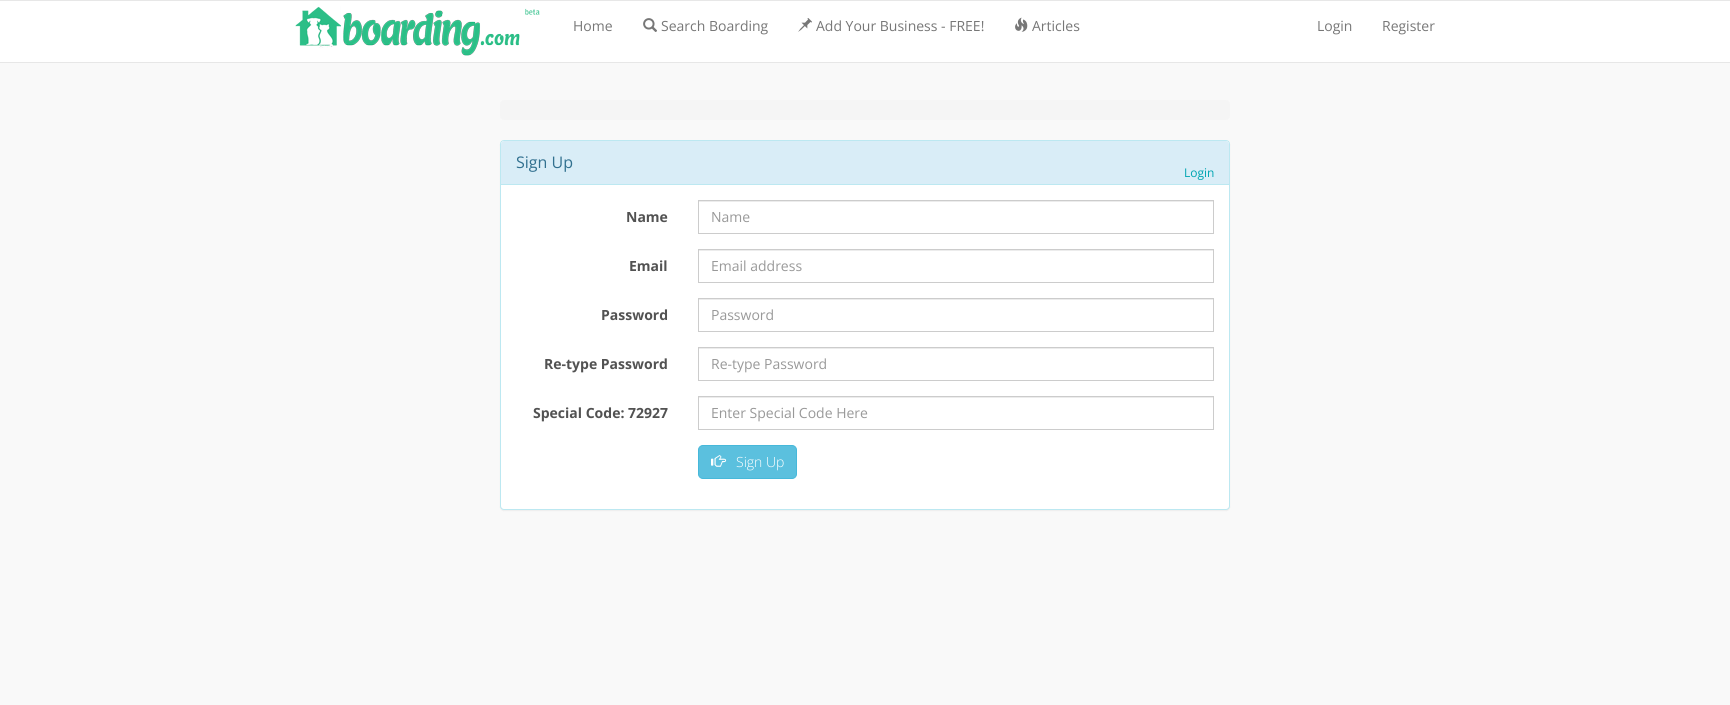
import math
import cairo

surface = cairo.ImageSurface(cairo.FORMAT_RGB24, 1730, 705)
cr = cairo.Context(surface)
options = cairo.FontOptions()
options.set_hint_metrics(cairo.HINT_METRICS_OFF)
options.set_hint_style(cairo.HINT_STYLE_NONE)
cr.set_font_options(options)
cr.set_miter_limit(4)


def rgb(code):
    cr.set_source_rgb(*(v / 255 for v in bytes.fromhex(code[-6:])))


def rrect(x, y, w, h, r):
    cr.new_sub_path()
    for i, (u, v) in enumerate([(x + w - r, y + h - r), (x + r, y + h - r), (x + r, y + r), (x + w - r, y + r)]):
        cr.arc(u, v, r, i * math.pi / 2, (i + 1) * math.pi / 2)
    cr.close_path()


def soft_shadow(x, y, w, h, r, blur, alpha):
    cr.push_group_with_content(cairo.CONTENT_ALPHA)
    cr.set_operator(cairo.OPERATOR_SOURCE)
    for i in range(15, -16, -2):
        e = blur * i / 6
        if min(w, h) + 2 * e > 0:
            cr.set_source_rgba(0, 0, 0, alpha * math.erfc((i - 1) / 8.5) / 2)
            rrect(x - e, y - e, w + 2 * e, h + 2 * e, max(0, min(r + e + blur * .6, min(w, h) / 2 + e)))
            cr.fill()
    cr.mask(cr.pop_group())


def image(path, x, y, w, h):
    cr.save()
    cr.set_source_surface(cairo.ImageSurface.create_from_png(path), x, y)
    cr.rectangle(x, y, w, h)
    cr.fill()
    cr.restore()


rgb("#f9f9f9")
cr.paint()
for x, y, w, h, color in [
    (0, 1, 1730, 61, "#ffffff"),
    (0, 0, 1730, 1, "#e7e7e7"),
    (0, 62, 1730, 1, "#e7e7e7"),
]:
    rgb(color)
    cr.rectangle(x, y, w, h)
    cr.fill()
image("img/1.png", 295, 6, 245, 50)
image("img/2.png", 643, 18, 14, 14)
image("img/3.png", 798, 18, 14, 14)
image("img/4.png", 1015, 17, 13, 15)
rgb("#f5f5f5")
rrect(500, 100, 730, 20, 4)
cr.fill()
rgb("#000000")
soft_shadow(500, 141, 730, 370, 4, 0.5, 0.05)
rgb("#ffffff")
rrect(500.5, 140.5, 729, 369, 3.5)
cr.fill_preserve()
rgb("#bce8f1")
cr.set_line_width(1)
cr.stroke()
rgb("#d9edf7")
cr.new_path()
cr.move_to(504, 141)
cr.line_to(1226, 141)
cr.curve_to(1227.5, 141, 1229, 142.5, 1229, 144)
cr.line_to(1229, 185)
cr.line_to(501, 185)
cr.line_to(501, 144)
cr.curve_to(501, 142.5, 502.5, 141, 504, 141)
cr.close_path()
cr.fill()
rgb("#bce8f1")
cr.rectangle(501, 184, 728, 1)
cr.fill()
rgb("#ececec")
cr.rectangle(699, 201, 514, 1)
cr.fill()
cr.rectangle(698.5, 200.5, 515, 33)
rgb("#cccccc")
cr.stroke()
rgb("#ececec")
cr.rectangle(699, 250, 514, 1)
cr.fill()
cr.rectangle(698.5, 249.5, 515, 33)
rgb("#cccccc")
cr.stroke()
rgb("#ececec")
cr.rectangle(699, 299, 514, 1)
cr.fill()
cr.rectangle(698.5, 298.5, 515, 33)
rgb("#cccccc")
cr.stroke()
rgb("#ececec")
cr.rectangle(699, 348, 514, 1)
cr.fill()
cr.rectangle(698.5, 347.5, 515, 33)
rgb("#cccccc")
cr.stroke()
rgb("#ececec")
cr.rectangle(699, 397, 514, 1)
cr.fill()
cr.rectangle(698.5, 396.5, 515, 33)
rgb("#cccccc")
cr.stroke()
rgb("#5bc0de")
rrect(698.5, 445.5, 98, 33, 4.5)
cr.fill_preserve()
rgb("#46b8da")
cr.stroke()
image("img/5.png", 711, 455, 16, 12)
cr.select_font_face("Open Sans")
cr.set_font_size(14)
rgb("#777777")
for x, y, s in [
    (573, 31, "Home"),
    (661, 31, "Search Boarding"),
    (816, 31, "Add Your Business - FREE!"),
    (1032, 31, "Articles"),
    (1317, 31, "Login"),
    (1382, 31, "Register"),
]:
    cr.move_to(x, y)
    cr.show_text(s)
cr.set_font_size(16)
rgb("#31708f")
cr.move_to(516, 168)
cr.show_text("Sign Up")
cr.set_font_size(12)
rgb("#00a5b2")
cr.move_to(1184, 177)
cr.show_text("Login")
cr.select_font_face("Open Sans", cairo.FONT_SLANT_NORMAL, cairo.FONT_WEIGHT_BOLD)
cr.set_font_size(14)
rgb("#525252")
cr.move_to(626, 222)
cr.show_text("Name")
cr.select_font_face("Open Sans")
rgb("#999999")
cr.move_to(711, 222)
cr.show_text("Name")
cr.select_font_face("Open Sans", cairo.FONT_SLANT_NORMAL, cairo.FONT_WEIGHT_BOLD)
rgb("#525252")
cr.move_to(629, 271)
cr.show_text("Email")
cr.select_font_face("Open Sans")
rgb("#999999")
cr.move_to(711, 271)
cr.show_text("Email address")
cr.select_font_face("Open Sans", cairo.FONT_SLANT_NORMAL, cairo.FONT_WEIGHT_BOLD)
rgb("#525252")
cr.move_to(601, 320)
cr.show_text("Password")
cr.select_font_face("Open Sans")
rgb("#999999")
cr.move_to(711, 320)
cr.show_text("Password")
cr.select_font_face("Open Sans", cairo.FONT_SLANT_NORMAL, cairo.FONT_WEIGHT_BOLD)
rgb("#525252")
cr.move_to(544, 369)
cr.show_text("Re-type Password")
cr.select_font_face("Open Sans")
rgb("#999999")
cr.move_to(711, 369)
cr.show_text("Re-type Password")
cr.select_font_face("Open Sans", cairo.FONT_SLANT_NORMAL, cairo.FONT_WEIGHT_BOLD)
rgb("#525252")
cr.move_to(533, 418)
cr.show_text("Special Code: 72927")
cr.select_font_face("Open Sans")
rgb("#999999")
cr.move_to(711, 418)
cr.show_text("Enter Special Code Here")
cr.select_font_face("Open Sans Light")
rgb("#ffffff")
cr.move_to(736, 467)
cr.show_text("Sign Up")
surface.write_to_png("page.png")
